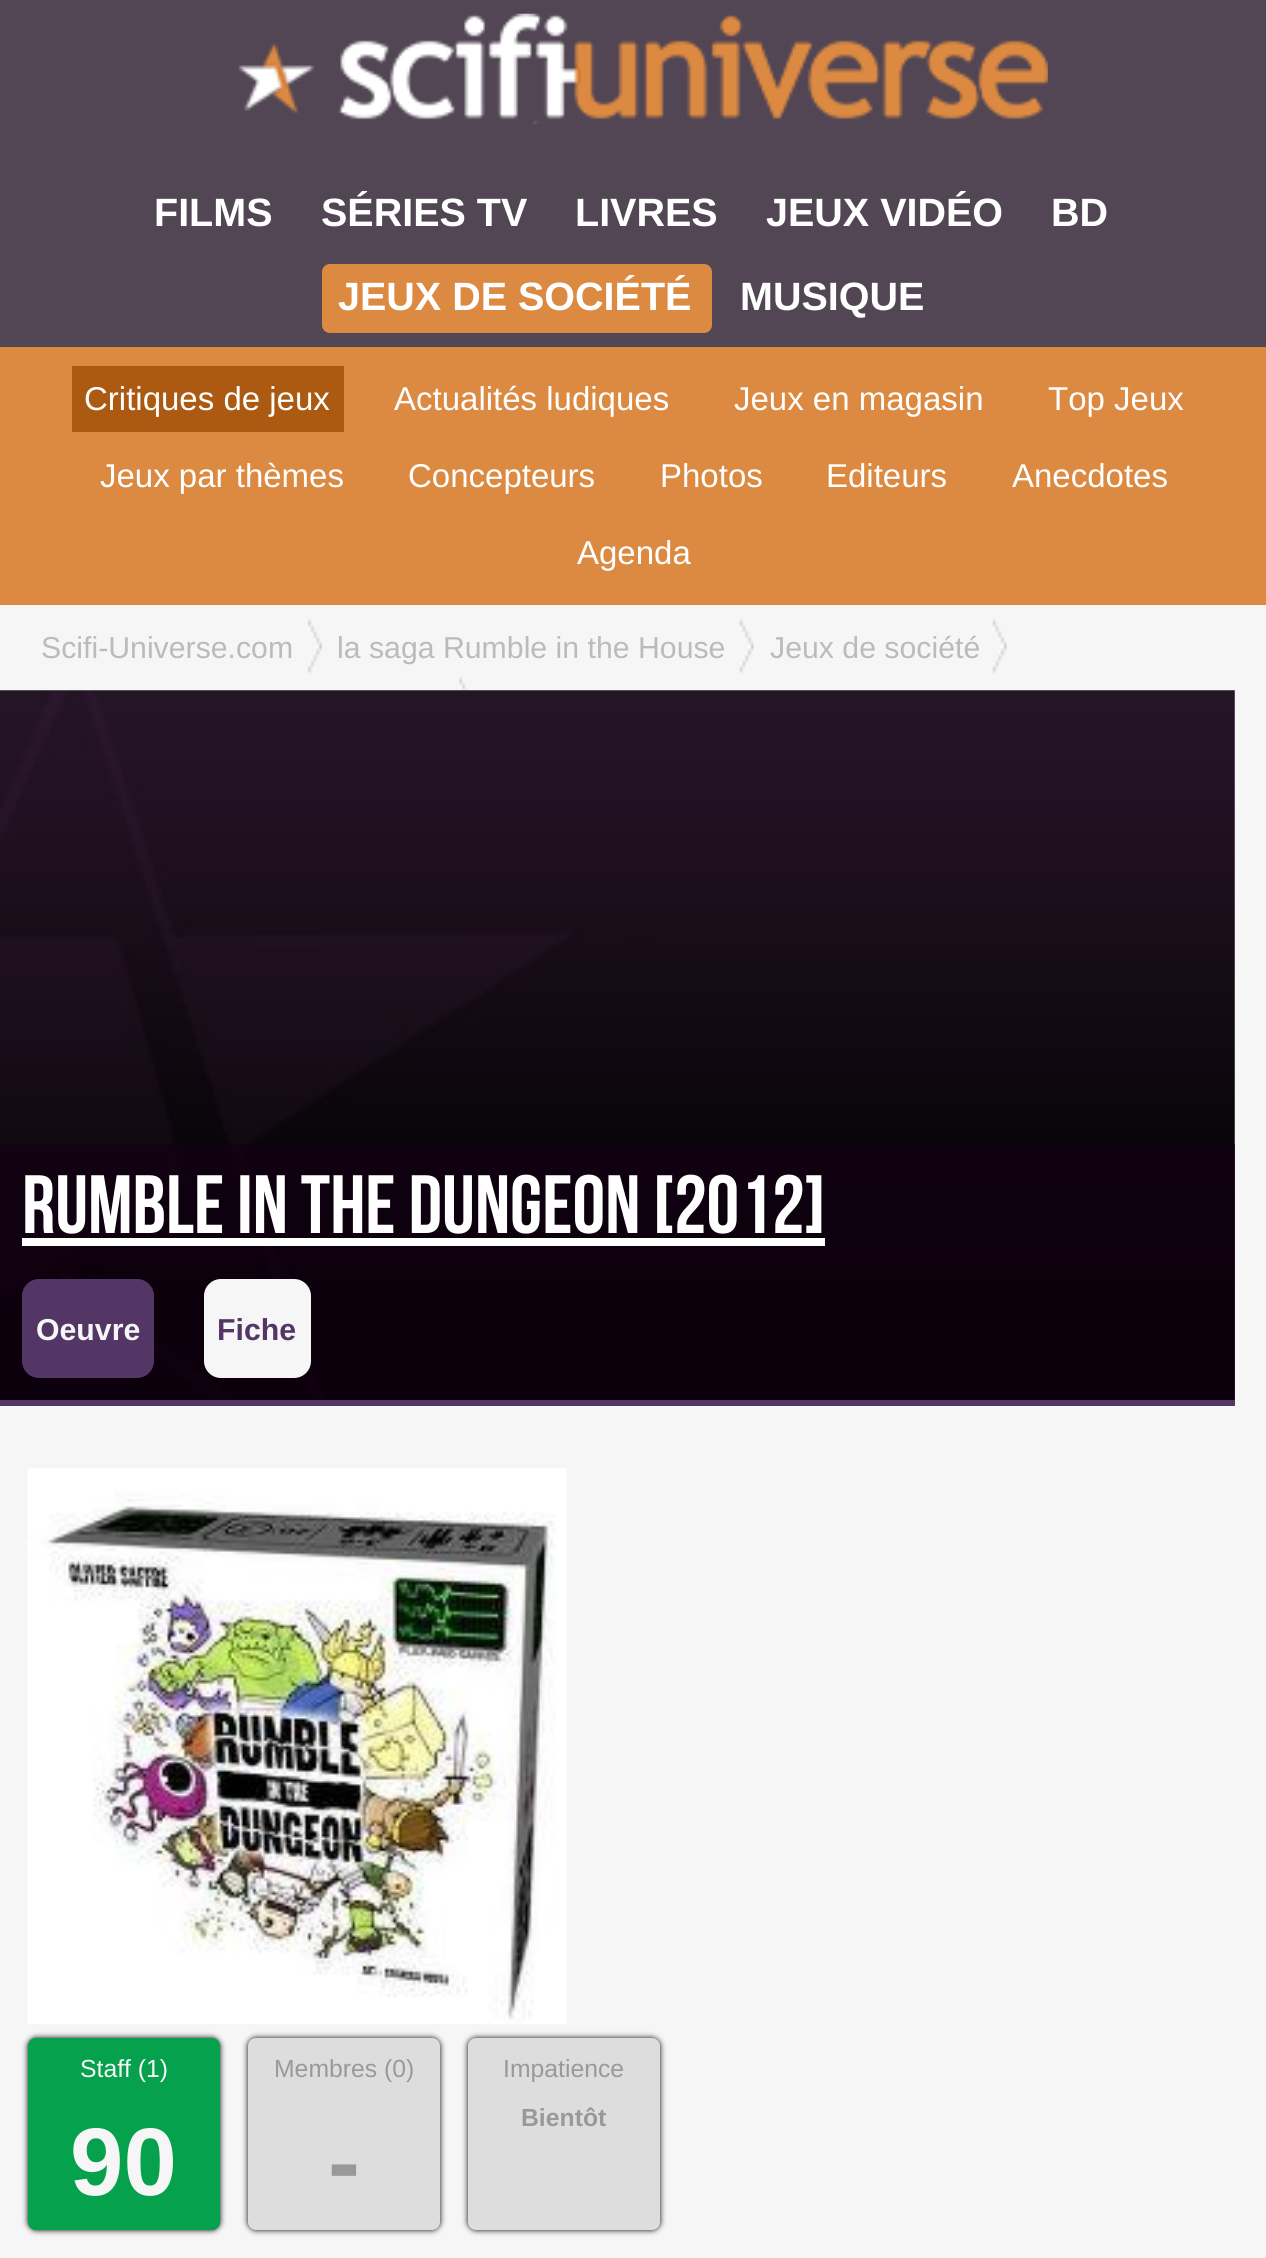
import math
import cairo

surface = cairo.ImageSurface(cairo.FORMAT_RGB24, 1266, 2258)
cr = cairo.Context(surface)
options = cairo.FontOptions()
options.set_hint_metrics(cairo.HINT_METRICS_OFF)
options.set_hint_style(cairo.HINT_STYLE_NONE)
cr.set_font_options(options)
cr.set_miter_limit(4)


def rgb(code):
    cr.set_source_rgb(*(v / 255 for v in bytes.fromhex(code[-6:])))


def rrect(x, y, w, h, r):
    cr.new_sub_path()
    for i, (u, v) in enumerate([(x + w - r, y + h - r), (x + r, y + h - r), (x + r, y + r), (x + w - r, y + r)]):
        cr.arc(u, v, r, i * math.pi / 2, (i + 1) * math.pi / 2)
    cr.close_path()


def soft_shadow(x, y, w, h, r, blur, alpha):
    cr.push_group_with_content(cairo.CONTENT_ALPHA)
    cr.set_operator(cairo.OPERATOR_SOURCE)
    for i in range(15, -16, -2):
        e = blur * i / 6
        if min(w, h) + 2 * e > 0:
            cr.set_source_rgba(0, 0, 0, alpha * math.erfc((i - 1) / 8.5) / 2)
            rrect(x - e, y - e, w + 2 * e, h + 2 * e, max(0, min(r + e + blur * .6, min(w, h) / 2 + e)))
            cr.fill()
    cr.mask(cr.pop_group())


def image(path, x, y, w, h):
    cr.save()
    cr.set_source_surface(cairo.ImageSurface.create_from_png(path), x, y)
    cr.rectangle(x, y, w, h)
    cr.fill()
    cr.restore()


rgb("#524654")
cr.paint()
image("img/1.png", 238, 13, 810, 112)
rgb("#dc8a41")
rrect(322, 264, 390, 69, 8)
cr.fill()
for x, y, w, h, color in [
    (0, 347, 1266, 258, "#dc8a41"),
    (72, 366, 272, 66, "#ac5912"),
    (0, 605, 1266, 1653, "#f6f6f6"),
]:
    rgb(color)
    cr.rectangle(x, y, w, h)
    cr.fill()
image("img/2.png", 308, 619, 14, 55)
image("img/3.png", 739, 619, 15, 55)
image("img/3.png", 992, 619, 15, 55)
image("img/4.png", 459, 676, 9, 15)
image("img/5.png", 0, 690, 1235, 710)
cr.set_source_rgba(0.078, 0, 0.078, 0.7)
cr.rectangle(0, 1144, 1235, 256)
cr.fill()
rgb("#ffffff")
cr.rectangle(22, 1238, 803, 8)
cr.fill()
rgb("#533566")
cr.rectangle(0, 1400, 1235, 6)
cr.fill()
rrect(22, 1279, 132, 99, 17)
cr.fill()
rgb("#f6f6f6")
rrect(204, 1279, 107, 99, 17)
cr.fill()
image("img/6.png", 27, 1468, 540, 556)
rgb("#000000")
soft_shadow(28, 2038, 192, 192, 8, 3, 1)
rgb("#05a14d")
rrect(28, 2038, 192, 192, 8)
cr.fill()
rgb("#000000")
soft_shadow(248, 2038, 192, 192, 8, 3, 1)
rgb("#dddddd")
rrect(248, 2038, 192, 192, 8)
cr.fill()
rgb("#000000")
soft_shadow(468, 2038, 192, 192, 8, 3, 1)
rgb("#dddddd")
rrect(468, 2038, 192, 192, 8)
cr.fill()
cr.select_font_face("Liberation Sans", cairo.FONT_SLANT_NORMAL, cairo.FONT_WEIGHT_BOLD)
cr.set_font_size(39.5)
rgb("#ffffff")
for x, y, s in [
    (154, 226, "FILMS"),
    (321, 226, "SÉRIES TV"),
    (575, 226, "LIVRES"),
    (766, 226, "JEUX VIDÉO"),
    (1051, 226, "BD"),
    (338, 310, "JEUX DE SOCIÉTÉ"),
    (740, 310, "MUSIQUE"),
]:
    cr.move_to(x, y)
    cr.show_text(s)
cr.select_font_face("Liberation Sans")
cr.set_font_size(33)
for x, y, s in [
    (84, 410, "Critiques de jeux"),
    (394, 410, "Actualités ludiques"),
    (734, 410, "Jeux en magasin"),
    (1048, 410, "Top Jeux"),
    (100, 487, "Jeux par thèmes"),
    (408, 487, "Concepteurs"),
    (660, 487, "Photos"),
    (826, 487, "Editeurs"),
    (1012, 487, "Anecdotes"),
    (577, 564, "Agenda"),
]:
    cr.move_to(x, y)
    cr.show_text(s)
cr.set_font_size(30.25)
rgb("#bbbbbb")
for x, y, s in [
    (41, 658, "Scifi-Universe.com"),
    (337, 658, "la saga Rumble in the House"),
    (770, 658, "Jeux de société"),
]:
    cr.move_to(x, y)
    cr.show_text(s)
cr.select_font_face("Bebas Neue")
cr.set_font_size(82.5)
rgb("#ffffff")
cr.move_to(22, 1233)
cr.show_text("Rumble in the dungeon [2012]")
cr.select_font_face("Liberation Sans", cairo.FONT_SLANT_NORMAL, cairo.FONT_WEIGHT_BOLD)
cr.set_font_size(30.25)
rgb("#f6f6f6")
cr.move_to(36, 1340)
cr.show_text("Oeuvre")
rgb("#533566")
cr.move_to(217, 1340)
cr.show_text("Fiche")
cr.select_font_face("Liberation Sans")
cr.set_font_size(24.75)
rgb("#f6f6f6")
cr.move_to(80, 2077)
cr.show_text("Staff (1)")
cr.select_font_face("Liberation Sans", cairo.FONT_SLANT_NORMAL, cairo.FONT_WEIGHT_BOLD)
cr.set_font_size(96)
cr.move_to(70, 2195)
cr.show_text("90")
cr.select_font_face("Liberation Sans")
cr.set_font_size(24.75)
rgb("#999999")
cr.move_to(274, 2077)
cr.show_text("Membres (0)")
cr.select_font_face("Liberation Sans", cairo.FONT_SLANT_NORMAL, cairo.FONT_WEIGHT_BOLD)
cr.set_font_size(96)
cr.move_to(328, 2195)
cr.show_text("-")
cr.select_font_face("Liberation Sans")
cr.set_font_size(24.75)
cr.move_to(503, 2077)
cr.show_text("Impatience")
cr.select_font_face("Liberation Sans", cairo.FONT_SLANT_NORMAL, cairo.FONT_WEIGHT_BOLD)
cr.move_to(521, 2126)
cr.show_text("Bientôt")
surface.write_to_png("page.png")
